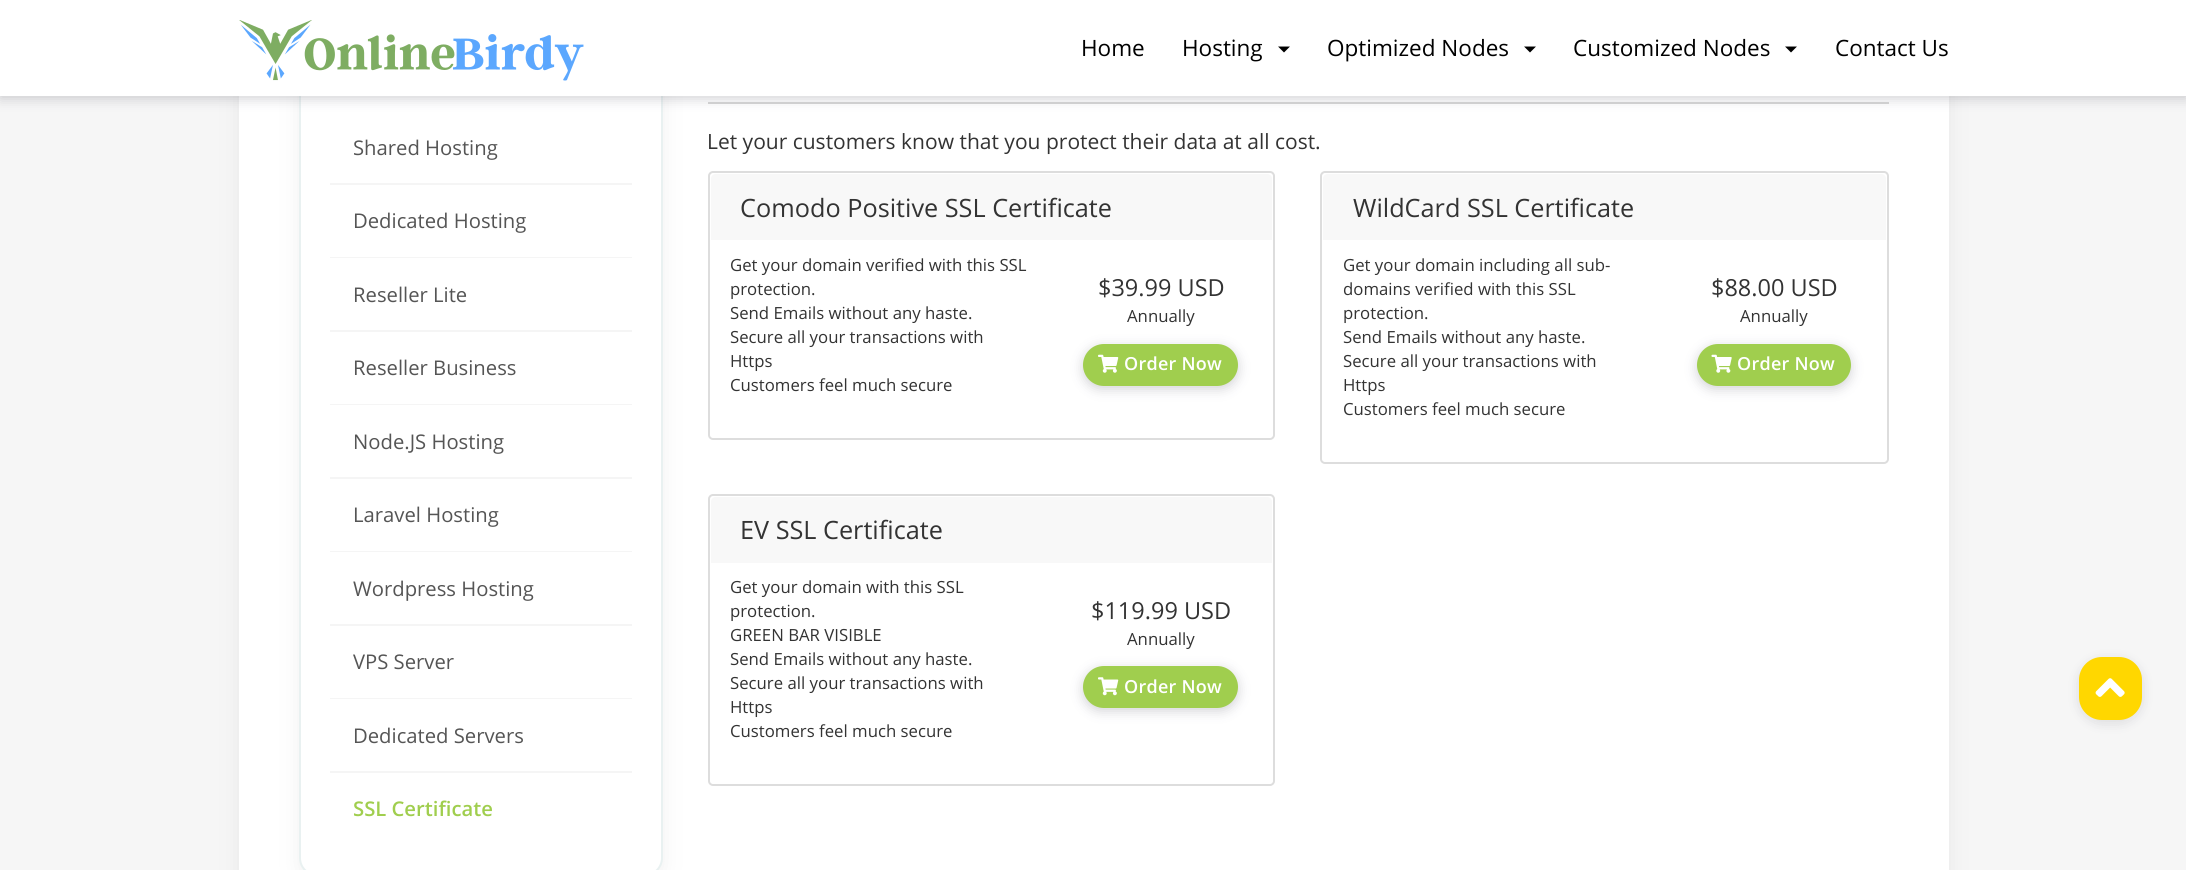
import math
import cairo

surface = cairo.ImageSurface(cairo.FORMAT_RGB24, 2186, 870)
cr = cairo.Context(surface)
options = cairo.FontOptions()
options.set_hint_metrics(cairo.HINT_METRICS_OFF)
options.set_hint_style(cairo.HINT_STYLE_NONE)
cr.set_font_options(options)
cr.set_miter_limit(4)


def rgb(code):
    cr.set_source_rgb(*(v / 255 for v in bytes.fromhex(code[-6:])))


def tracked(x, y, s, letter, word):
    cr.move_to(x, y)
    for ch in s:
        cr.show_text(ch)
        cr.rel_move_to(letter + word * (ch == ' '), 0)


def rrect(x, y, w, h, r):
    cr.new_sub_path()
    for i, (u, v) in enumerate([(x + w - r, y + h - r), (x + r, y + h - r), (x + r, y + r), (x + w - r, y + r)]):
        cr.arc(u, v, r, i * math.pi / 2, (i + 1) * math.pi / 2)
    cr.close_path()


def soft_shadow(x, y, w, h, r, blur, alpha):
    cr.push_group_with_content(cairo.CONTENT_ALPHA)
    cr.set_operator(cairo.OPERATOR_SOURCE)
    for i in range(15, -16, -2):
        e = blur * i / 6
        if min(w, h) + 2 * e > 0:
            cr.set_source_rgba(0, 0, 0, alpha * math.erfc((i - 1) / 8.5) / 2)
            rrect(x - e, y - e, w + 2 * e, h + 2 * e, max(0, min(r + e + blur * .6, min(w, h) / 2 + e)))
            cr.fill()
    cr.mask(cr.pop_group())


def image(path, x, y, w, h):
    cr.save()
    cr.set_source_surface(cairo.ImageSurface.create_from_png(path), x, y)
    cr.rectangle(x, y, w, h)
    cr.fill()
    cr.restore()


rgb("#f6f6f6")
cr.paint()
rgb("#6e6e6e")
soft_shadow(239, -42, 1710, 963, 18, 11, 0.1)
rgb("#ffffff")
cr.rectangle(239, 96, 1710, 774)
cr.fill()
rgb("#6e6e6e")
soft_shadow(299, 18, 364, 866, 18, 11, 0.1)
rgb("#ffffff")
rrect(300, 12, 362, 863, 17)
cr.fill_preserve()
rgb("#e9f1f1")
cr.stroke()
rgb("#d8d8d8")
cr.rectangle(708, 102, 1181, 2)
cr.fill()
rgb("#3e3e4f")
soft_shadow(0, 3, 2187, 96, 0, 6, 0.23)
rgb("#ffffff")
cr.rectangle(0, 0, 2186, 96)
cr.fill()
image("img/1.png", 239, 20, 345, 61)
rgb("#000000")
cr.new_path()
cr.move_to(1278, 46.5)
cr.line_to(1290, 46.5)
cr.line_to(1284, 52.5)
cr.close_path()
cr.fill()
cr.new_path()
cr.move_to(1524, 46.5)
cr.line_to(1536, 46.5)
cr.line_to(1530, 52.5)
cr.close_path()
cr.fill()
cr.new_path()
cr.move_to(1785, 46.5)
cr.line_to(1797, 46.5)
cr.line_to(1791, 52.5)
cr.close_path()
cr.fill()
for x, y, w, h, color in [
    (330, 183, 302, 2, "#f5f5f5"),
    (330, 257, 302, 1, "#f5f5f5"),
    (330, 330, 302, 2, "#f5f5f5"),
    (330, 404, 302, 1, "#f5f5f5"),
    (330, 477, 302, 2, "#f5f5f5"),
    (330, 551, 302, 1, "#f5f5f5"),
    (330, 624, 302, 2, "#f5f5f5"),
    (330, 698, 302, 1, "#f5f5f5"),
    (330, 771, 302, 2, "#f5f5f5"),
]:
    rgb(color)
    cr.rectangle(x, y, w, h)
    cr.fill()
rrect(709, 172, 565, 267, 4)
rgb("#dddddd")
cr.stroke()
rgb("#f8f8f8")
cr.new_path()
cr.move_to(716, 174)
cr.line_to(1267, 174)
cr.curve_to(1270, 174, 1272, 176, 1272, 179)
cr.line_to(1272, 240)
cr.line_to(711, 240)
cr.line_to(711, 179)
cr.curve_to(711, 176, 713, 174, 716, 174)
cr.close_path()
cr.fill()
rgb("#3e3e4f")
soft_shadow(1083, 347, 155, 42, 21, 6, 0.23)
rgb("#a0ce4e")
rrect(1083, 344, 155, 42, 21)
cr.fill()
image("img/2.png", 1098, 354, 21, 19)
rrect(1321, 172, 567, 291, 4)
rgb("#dddddd")
cr.stroke()
rgb("#f8f8f8")
cr.new_path()
cr.move_to(1328, 174)
cr.line_to(1881, 174)
cr.curve_to(1884, 174, 1886, 176, 1886, 179)
cr.line_to(1886, 240)
cr.line_to(1323, 240)
cr.line_to(1323, 179)
cr.curve_to(1323, 176, 1325, 174, 1328, 174)
cr.close_path()
cr.fill()
rgb("#3e3e4f")
soft_shadow(1697, 347, 154, 42, 21, 6, 0.23)
rgb("#a0ce4e")
rrect(1697, 344, 154, 42, 21)
cr.fill()
image("img/3.png", 1711, 354, 21, 19)
rrect(709, 495, 565, 290, 4)
rgb("#dddddd")
cr.stroke()
rgb("#f8f8f8")
cr.new_path()
cr.move_to(716, 497)
cr.line_to(1267, 497)
cr.curve_to(1270, 497, 1272, 499, 1272, 502)
cr.line_to(1272, 563)
cr.line_to(711, 563)
cr.line_to(711, 502)
cr.curve_to(711, 499, 713, 497, 716, 497)
cr.close_path()
cr.fill()
rgb("#3e3e4f")
soft_shadow(1083, 669, 155, 42, 21, 6, 0.23)
rgb("#a0ce4e")
rrect(1083, 666, 155, 42, 21)
cr.fill()
image("img/4.png", 1098, 677, 21, 19)
rgb("#3e3e4f")
soft_shadow(2079, 660, 63, 63, 23, 6, 0.15)
rgb("#ffd700")
rrect(2079, 657, 63, 63, 23)
cr.fill()
image("img/5.png", 2095, 678, 30, 19)
cr.select_font_face("Open Sans")
cr.set_font_size(22.5)
rgb("#000000")
for x, y, s in [
    (1081, 56, "Home"),
    (1182, 56, "Hosting"),
    (1327, 56, "Optimized Nodes"),
    (1573, 56, "Customized Nodes"),
    (1835, 56, "Contact Us"),
]:
    cr.move_to(x, y)
    cr.show_text(s)
cr.set_font_size(20.25)
rgb("#555555")
for x, y, s in [
    (353, 155, "Shared Hosting"),
    (353, 228, "Dedicated Hosting"),
    (353, 302, "Reseller Lite"),
    (353, 375, "Reseller Business"),
    (353, 449, "Node.JS Hosting"),
    (353, 522, "Laravel Hosting"),
    (353, 596, "Wordpress Hosting"),
    (353, 669, "VPS Server"),
    (353, 743, "Dedicated Servers"),
]:
    cr.move_to(x, y)
    cr.show_text(s)
cr.select_font_face("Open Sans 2 SemiBold")
rgb("#a0ce4e")
cr.move_to(353, 816)
cr.show_text("SSL Certificate")
cr.select_font_face("Open Sans")
cr.set_font_size(21)
rgb("#333333")
cr.move_to(707, 149)
cr.show_text("Let your customers know that you protect their data at all cost.")
cr.set_font_size(25.25)
cr.move_to(740, 217)
cr.show_text("Comodo Positive SSL Certificate")
cr.set_font_size(16.75)
for x, y, s in [
    (730, 271, "Get your domain verified with this SSL"),
    (730, 295, "protection."),
    (730, 319, "Send Emails without any haste."),
    (730, 343, "Secure all your transactions with"),
    (730, 367, "Https"),
    (730, 391, "Customers feel much secure"),
]:
    cr.move_to(x, y)
    cr.show_text(s)
cr.set_font_size(23.5)
cr.move_to(1098, 296)
cr.show_text("$39.99 USD")
cr.set_font_size(16.75)
cr.move_to(1127, 322)
cr.show_text("Annually")
cr.select_font_face("Open Sans SemiBold")
cr.set_font_size(18)
rgb("#ffffff")
tracked(1124, 370, "Order Now", 0.25, 0)
cr.select_font_face("Open Sans")
cr.set_font_size(25.25)
rgb("#333333")
cr.move_to(1353, 217)
cr.show_text("WildCard SSL Certificate")
cr.set_font_size(16.75)
for x, y, s in [
    (1343, 271, "Get your domain including all sub-"),
    (1343, 295, "domains verified with this SSL"),
    (1343, 319, "protection."),
    (1343, 343, "Send Emails without any haste."),
    (1343, 367, "Secure all your transactions with"),
    (1343, 391, "Https"),
    (1343, 415, "Customers feel much secure"),
]:
    cr.move_to(x, y)
    cr.show_text(s)
cr.set_font_size(23.5)
cr.move_to(1711, 296)
cr.show_text("$88.00 USD")
cr.set_font_size(16.75)
cr.move_to(1740, 322)
cr.show_text("Annually")
cr.select_font_face("Open Sans SemiBold")
cr.set_font_size(18)
rgb("#ffffff")
tracked(1737, 370, "Order Now", 0.25, 0)
cr.select_font_face("Open Sans")
cr.set_font_size(25.25)
rgb("#333333")
cr.move_to(740, 539)
cr.show_text("EV SSL Certificate")
cr.set_font_size(16.75)
for x, y, s in [
    (730, 593, "Get your domain with this SSL"),
    (730, 617, "protection."),
    (730, 641, "GREEN BAR VISIBLE"),
    (730, 665, "Send Emails without any haste."),
    (730, 689, "Secure all your transactions with"),
    (730, 713, "Https"),
    (730, 737, "Customers feel much secure"),
]:
    cr.move_to(x, y)
    cr.show_text(s)
cr.set_font_size(23.5)
cr.move_to(1091, 619)
cr.show_text("$119.99 USD")
cr.set_font_size(16.75)
cr.move_to(1127, 645)
cr.show_text("Annually")
cr.select_font_face("Open Sans SemiBold")
cr.set_font_size(18)
rgb("#ffffff")
tracked(1124, 693, "Order Now", 0.25, 0)
surface.write_to_png("page.png")
